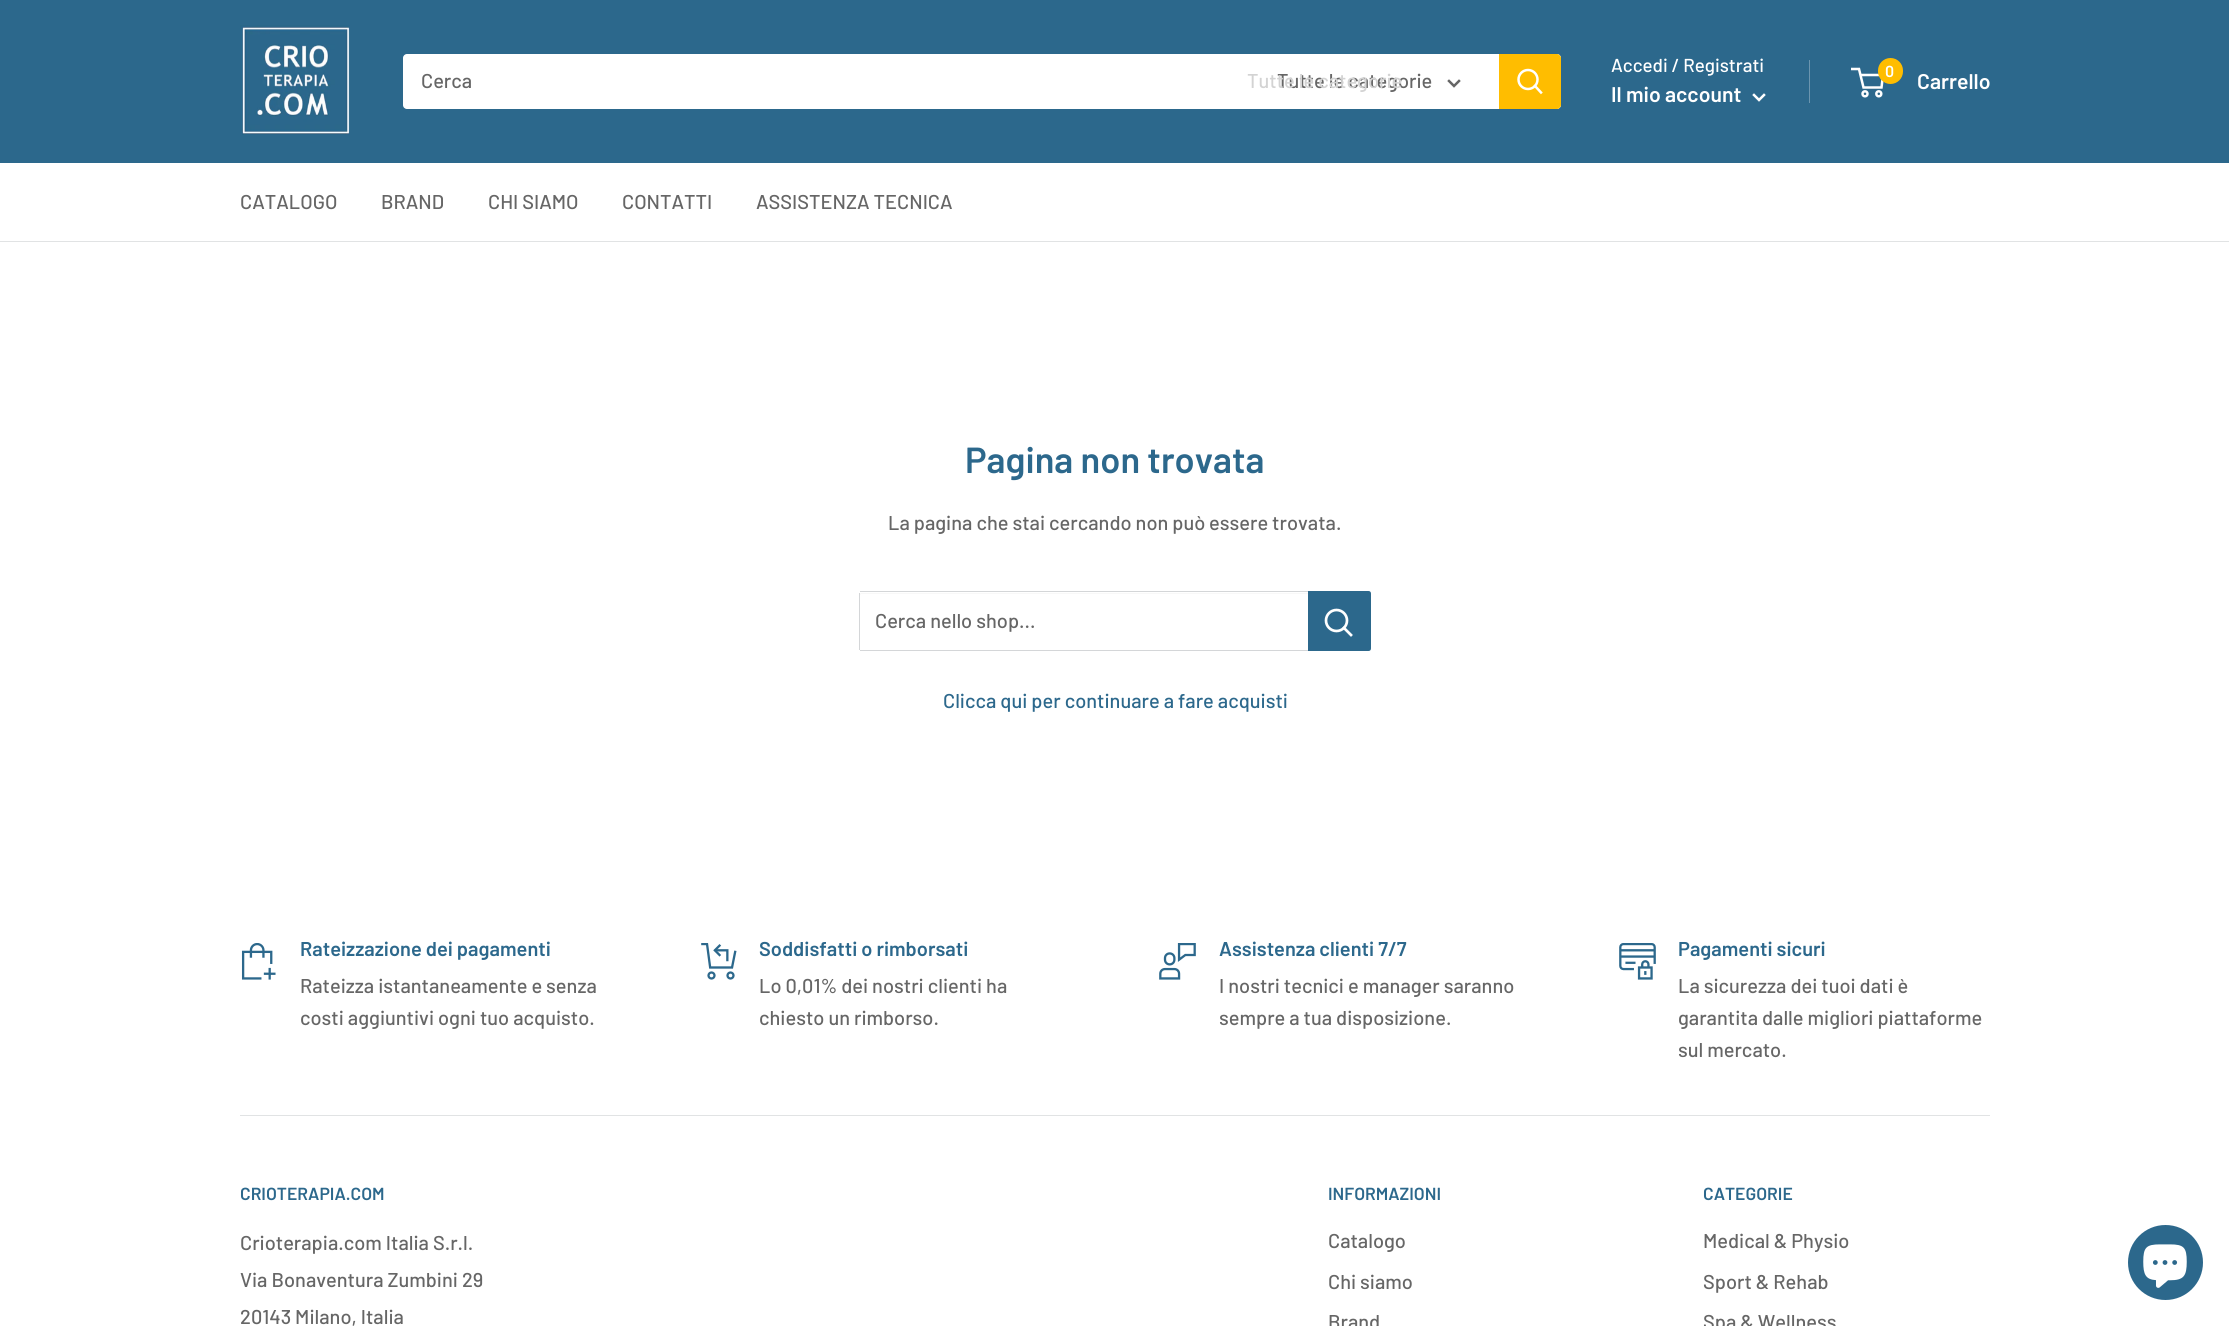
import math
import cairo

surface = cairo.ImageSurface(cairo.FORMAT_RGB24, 2229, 1326)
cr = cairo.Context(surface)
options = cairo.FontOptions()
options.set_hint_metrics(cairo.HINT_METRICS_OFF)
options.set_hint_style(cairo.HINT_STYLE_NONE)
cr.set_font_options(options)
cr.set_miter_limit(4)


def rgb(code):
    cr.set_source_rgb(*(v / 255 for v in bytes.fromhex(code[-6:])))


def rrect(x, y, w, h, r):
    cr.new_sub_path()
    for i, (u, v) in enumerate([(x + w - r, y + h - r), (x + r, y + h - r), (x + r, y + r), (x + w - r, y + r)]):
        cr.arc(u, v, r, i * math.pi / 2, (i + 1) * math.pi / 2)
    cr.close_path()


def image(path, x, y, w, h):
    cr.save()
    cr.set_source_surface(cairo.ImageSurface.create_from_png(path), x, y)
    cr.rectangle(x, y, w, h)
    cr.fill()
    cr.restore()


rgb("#ffffff")
cr.paint()
rgb("#2c688c")
cr.rectangle(0, 0, 2229, 163)
cr.fill()
image("img/1.png", 240, 25, 110, 110)
rgb("#ffffff")
rrect(403, 54, 1158, 55, 4)
cr.fill()
cr.new_path()
cr.move_to(1459, 81)
cr.line_to(1454, 86)
cr.line_to(1449, 81)
rgb("#666666")
cr.set_line_width(2.5)
cr.set_line_cap(cairo.LINE_CAP_SQUARE)
cr.stroke()
rgb("#ffbd00")
cr.new_path()
cr.move_to(1499, 54)
cr.line_to(1557, 54)
cr.curve_to(1559, 54, 1561, 56, 1561, 58)
cr.line_to(1561, 105)
cr.curve_to(1561, 107, 1559, 109, 1557, 109)
cr.line_to(1499, 109)
cr.close_path()
cr.fill()
cr.new_path()
cr.move_to(1541, 92.5)
cr.line_to(1535, 86)
rgb("#ffffff")
cr.stroke()
cr.arc(1528, 79.5, 9.5, 0, 2 * math.pi)
cr.set_line_cap(cairo.LINE_CAP_BUTT)
cr.stroke()
rgb("#6b95af")
cr.rectangle(1809, 60, 1, 43)
cr.fill()
cr.new_path()
cr.move_to(1764, 95)
cr.line_to(1759, 100)
cr.line_to(1754, 95)
rgb("#ffffff")
cr.set_line_cap(cairo.LINE_CAP_SQUARE)
cr.stroke()
cr.arc(1865, 93.8, 2.5, 0, 2 * math.pi)
cr.set_line_cap(cairo.LINE_CAP_BUTT)
cr.stroke()
cr.arc(1878.8, 93.8, 2.5, 0, 2 * math.pi)
cr.stroke()
cr.new_path()
cr.move_to(1860.5, 75)
cr.line_to(1883, 75)
cr.line_to(1881.5, 87.5)
cr.line_to(1863.5, 87.5)
cr.line_to(1859, 69)
cr.line_to(1851, 69)
cr.stroke()
rgb("#ffbd00")
rrect(1878, 58, 25, 26, 12.5)
cr.fill()
rgb("#e1e3e4")
cr.rectangle(0, 241, 2229, 1)
cr.fill()
rgb("#f8f8f8")
cr.new_path()
cr.move_to(861, 594)
cr.line_to(1308, 594)
cr.line_to(1308, 593)
cr.line_to(861, 593)
cr.line_to(860, 594)
cr.line_to(860, 595)
cr.close_path()
cr.fill()
for x, y, w, h, color in [
    (860, 591, 448, 1, "#d4d6d8"),
    (860, 650, 448, 1, "#d4d6d8"),
    (859, 593, 1, 57, "#d4d6d8"),
]:
    rgb(color)
    cr.rectangle(x, y, w, h)
    cr.fill()
rgb("#2c688c")
cr.new_path()
cr.move_to(1308, 591)
cr.line_to(1368.5, 591)
cr.curve_to(1370, 591, 1371, 592, 1371, 593.5)
cr.line_to(1371, 648.5)
cr.curve_to(1371, 650, 1370, 651, 1368.5, 651)
cr.line_to(1308, 651)
cr.close_path()
cr.fill()
cr.new_path()
cr.move_to(1351, 635)
cr.line_to(1344, 628)
rgb("#ffffff")
cr.set_line_width(2.7)
cr.set_line_cap(cairo.LINE_CAP_SQUARE)
cr.stroke()
cr.arc(1336.5, 620.5, 10.5, 0, 2 * math.pi)
cr.set_line_cap(cairo.LINE_CAP_BUTT)
cr.stroke()
image("img/2.png", 241, 943, 35, 37)
image("img/3.png", 701, 943, 36, 37)
image("img/4.png", 1159, 943, 37, 37)
image("img/5.png", 1619, 943, 37, 37)
rgb("#e1e3e4")
cr.rectangle(240, 1115, 1750, 1)
cr.fill()
rgb("#2c688c")
cr.arc(2165.5, 1262.5, 37.5, 0, 2 * math.pi)
cr.fill()
image("img/6.png", 2143, 1244, 44, 44)
cr.select_font_face("Barlow Medium")
cr.set_font_size(20)
rgb("#666666")
cr.move_to(421, 88)
cr.show_text("Cerca")
cr.move_to(1277, 88)
cr.show_text("Tutte le categorie")
rgb("#d3d3d3")
cr.move_to(1247, 88)
cr.show_text("Tutte le categorie")
cr.set_font_size(18.75)
rgb("#ffffff")
cr.move_to(1611, 72)
cr.show_text("Accedi / Registrati")
cr.select_font_face("Barlow SemiBold")
cr.set_font_size(21.25)
cr.move_to(1611, 102)
cr.show_text("Il mio account")
cr.set_font_size(16)
cr.move_to(1885, 77)
cr.show_text("0")
cr.set_font_size(21.25)
cr.move_to(1917, 89)
cr.show_text("Carrello")
cr.select_font_face("Barlow Medium")
cr.set_font_size(20)
rgb("#666666")
for x, y, s in [
    (240, 209, "CATALOGO"),
    (381, 209, "BRAND"),
    (488, 209, "CHI SIAMO"),
    (622, 209, "CONTATTI"),
    (756, 209, "ASSISTENZA TECNICA"),
]:
    cr.move_to(x, y)
    cr.show_text(s)
cr.select_font_face("Barlow SemiBold")
cr.set_font_size(36.25)
rgb("#2c688c")
cr.move_to(965, 473)
cr.show_text("Pagina non trovata")
cr.select_font_face("Barlow Medium")
cr.set_font_size(20)
rgb("#666666")
cr.move_to(888, 530)
cr.show_text("La pagina che stai cercando non può essere trovata.")
cr.move_to(875, 628)
cr.show_text("Cerca nello shop...")
rgb("#2c688c")
cr.move_to(943, 708)
cr.show_text("Clicca qui per continuare a fare acquisti")
cr.select_font_face("Barlow SemiBold")
cr.move_to(300, 956)
cr.show_text("Rateizzazione dei pagamenti")
cr.select_font_face("Barlow Medium")
rgb("#666666")
cr.move_to(300, 993)
cr.show_text("Rateizza istantaneamente e senza")
cr.move_to(300, 1025)
cr.show_text("costi aggiuntivi ogni tuo acquisto.")
cr.select_font_face("Barlow SemiBold")
rgb("#2c688c")
cr.move_to(759, 956)
cr.show_text("Soddisfatti o rimborsati")
cr.select_font_face("Barlow Medium")
rgb("#666666")
cr.move_to(759, 993)
cr.show_text("Lo 0,01% dei nostri clienti ha")
cr.move_to(759, 1025)
cr.show_text("chiesto un rimborso.")
cr.select_font_face("Barlow SemiBold")
rgb("#2c688c")
cr.move_to(1219, 956)
cr.show_text("Assistenza clienti 7/7")
cr.select_font_face("Barlow Medium")
rgb("#666666")
cr.move_to(1219, 993)
cr.show_text("I nostri tecnici e manager saranno")
cr.move_to(1219, 1025)
cr.show_text("sempre a tua disposizione.")
cr.select_font_face("Barlow SemiBold")
rgb("#2c688c")
cr.move_to(1678, 956)
cr.show_text("Pagamenti sicuri")
cr.select_font_face("Barlow Medium")
rgb("#666666")
for x, y, s in [
    (1678, 993, "La sicurezza dei tuoi dati è"),
    (1678, 1025, "garantita dalle migliori piattaforme"),
    (1678, 1057, "sul mercato."),
]:
    cr.move_to(x, y)
    cr.show_text(s)
cr.select_font_face("Barlow SemiBold")
cr.set_font_size(17.5)
rgb("#2c688c")
cr.move_to(240, 1200)
cr.show_text("CRIOTERAPIA.COM")
cr.select_font_face("Barlow Medium")
cr.set_font_size(20)
rgb("#666666")
for x, y, s in [
    (240, 1250, "Crioterapia.com Italia S.r.l."),
    (240, 1287, "Via Bonaventura Zumbini 29"),
    (240, 1324, "20143 Milano, Italia"),
]:
    cr.move_to(x, y)
    cr.show_text(s)
cr.select_font_face("Barlow SemiBold")
cr.set_font_size(17.5)
rgb("#2c688c")
cr.move_to(1328, 1200)
cr.show_text("INFORMAZIONI")
cr.select_font_face("Barlow Medium")
cr.set_font_size(20)
rgb("#666666")
for x, y, s in [
    (1328, 1248, "Catalogo"),
    (1328, 1289, "Chi siamo"),
    (1328, 1329, "Brand"),
]:
    cr.move_to(x, y)
    cr.show_text(s)
cr.select_font_face("Barlow SemiBold")
cr.set_font_size(17.5)
rgb("#2c688c")
cr.move_to(1703, 1200)
cr.show_text("CATEGORIE")
cr.select_font_face("Barlow Medium")
cr.set_font_size(20)
rgb("#666666")
for x, y, s in [
    (1703, 1248, "Medical & Physio"),
    (1703, 1289, "Sport & Rehab"),
    (1703, 1329, "Spa & Wellness"),
]:
    cr.move_to(x, y)
    cr.show_text(s)
surface.write_to_png("page.png")
